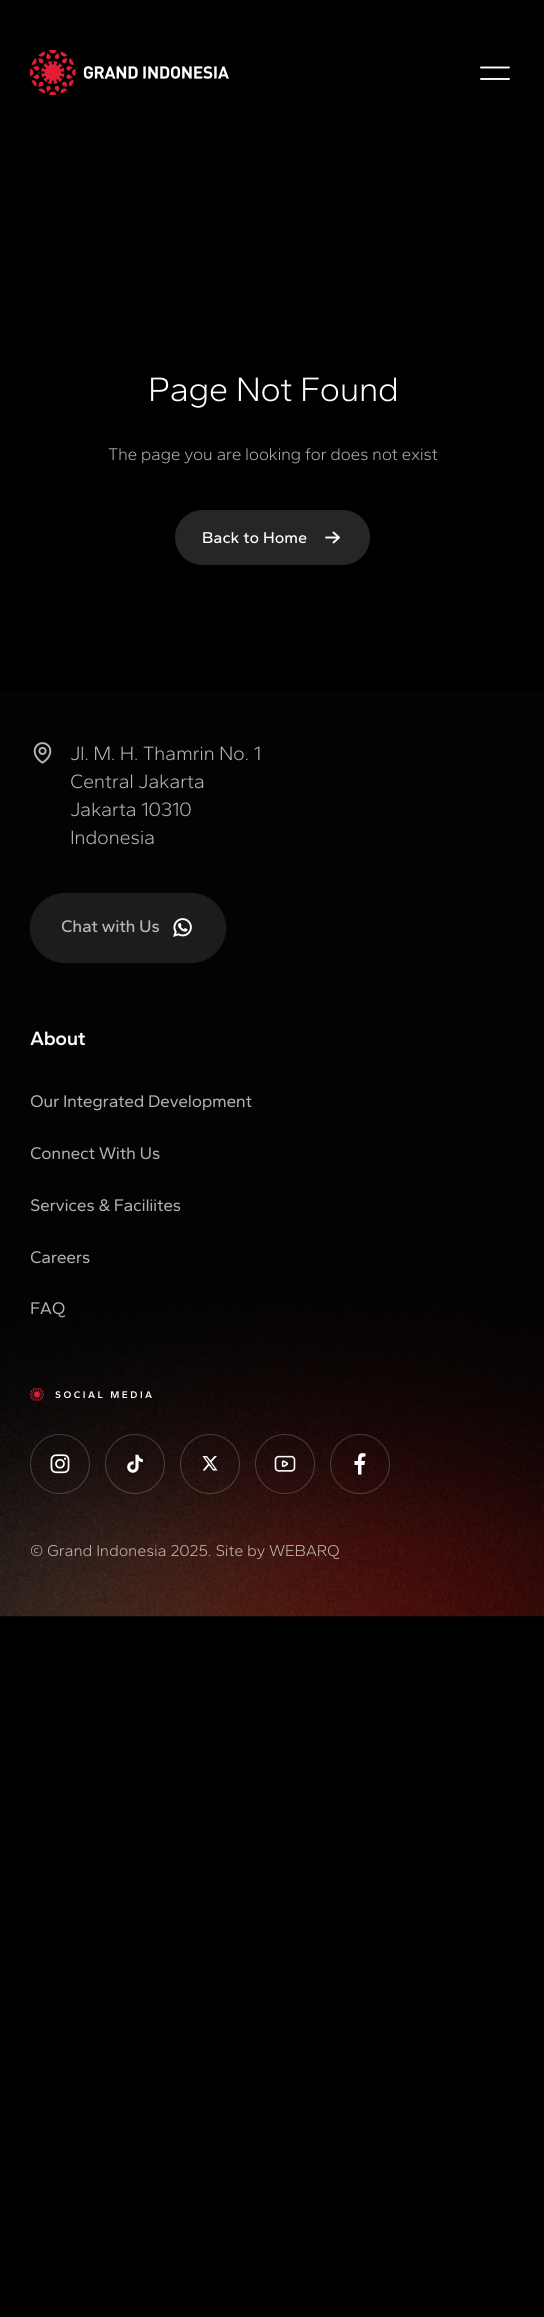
import math
import cairo

surface = cairo.ImageSurface(cairo.FORMAT_RGB24, 544, 2317)
cr = cairo.Context(surface)
options = cairo.FontOptions()
options.set_hint_metrics(cairo.HINT_METRICS_OFF)
options.set_hint_style(cairo.HINT_STYLE_NONE)
cr.set_font_options(options)
cr.set_miter_limit(4)


def rgb(code):
    cr.set_source_rgb(*(v / 255 for v in bytes.fromhex(code[-6:])))


def tracked(x, y, s, letter, word):
    cr.move_to(x, y)
    for ch in s:
        cr.show_text(ch)
        cr.rel_move_to(letter + word * (ch == ' '), 0)


def rrect(x, y, w, h, r):
    cr.new_sub_path()
    for i, (u, v) in enumerate([(x + w - r, y + h - r), (x + r, y + h - r), (x + r, y + r), (x + w - r, y + r)]):
        cr.arc(u, v, r, i * math.pi / 2, (i + 1) * math.pi / 2)
    cr.close_path()


def image(path, x, y, w, h):
    cr.save()
    cr.set_source_surface(cairo.ImageSurface.create_from_png(path), x, y)
    cr.rectangle(x, y, w, h)
    cr.fill()
    cr.restore()


rgb("#000000")
cr.paint()
image("img/1.png", 30, 50, 199, 45)
cr.new_path()
cr.move_to(481, 67.5)
cr.line_to(509, 67.5)
cr.move_to(481, 79)
cr.line_to(509, 79)
rgb("#ffffff")
cr.set_line_width(1.9)
cr.set_line_cap(cairo.LINE_CAP_ROUND)
cr.set_line_join(cairo.LINE_JOIN_ROUND)
cr.stroke()
rgb("#262626")
rrect(175, 510, 195, 55, 27.5)
cr.fill()
cr.new_path()
cr.move_to(333.5, 532.5)
cr.line_to(339, 537.5)
cr.move_to(339, 537.5)
cr.line_to(333.5, 542.5)
cr.move_to(339, 537.5)
cr.line_to(326, 537.5)
rgb("#ffffff")
cr.stroke()
rgb("#030303")
cr.rectangle(0, 690, 544, 926)
cr.fill()
image("img/2.png", 33, 742, 19, 22)
rgb("#1c1c1c")
rrect(30, 893, 196, 70, 35)
cr.fill()
image("img/3.png", 173, 918, 19, 19)
image("img/8.png", 0, 1295, 544, 322)
image("img/4.png", 30, 1388, 14, 13)
image("img/5.png", 30, 1434, 60, 60)
image("img/6.png", 105, 1434, 60, 60)
cr.arc(210, 1464, 29.5, 0, 2 * math.pi)
cr.set_source_rgba(1, 1, 1, 0.2)
cr.set_line_width(1)
cr.set_line_cap(cairo.LINE_CAP_BUTT)
cr.set_line_join(cairo.LINE_JOIN_MITER)
cr.stroke()
rgb("#ffffff")
cr.new_path()
cr.move_to(214.5, 1456)
cr.line_to(217, 1456)
cr.line_to(211.5, 1462)
cr.line_to(217.5, 1470.5)
cr.line_to(213, 1470.5)
cr.line_to(209, 1465.5)
cr.line_to(205, 1470.5)
cr.line_to(202.5, 1470.5)
cr.line_to(208, 1464)
cr.line_to(202.5, 1456)
cr.line_to(207, 1456)
cr.line_to(210.5, 1460.5)
cr.close_path()
cr.move_to(213.5, 1469)
cr.line_to(215, 1469)
cr.line_to(206.5, 1457.5)
cr.line_to(205, 1457.5)
cr.close_path()
cr.fill()
image("img/7.png", 255, 1434, 60, 60)
cr.arc(360, 1464, 29.5, 0, 2 * math.pi)
cr.set_source_rgba(1, 1, 1, 0.2)
cr.stroke()
rgb("#ffffff")
cr.new_path()
cr.move_to(364.5, 1465)
cr.line_to(365, 1461)
cr.line_to(361.5, 1461)
cr.curve_to(361.5, 1457.5, 361.5, 1456.5, 365.5, 1456.5)
cr.line_to(365.5, 1453.5)
cr.curve_to(358.5, 1452, 358, 1455, 358, 1461)
cr.line_to(354.5, 1461)
cr.line_to(354.5, 1465)
cr.line_to(358, 1465)
cr.line_to(358, 1474.5)
cr.line_to(361.5, 1474.5)
cr.line_to(361.5, 1465)
cr.close_path()
cr.fill()
cr.select_font_face("Gantari Light")
cr.set_font_size(35)
tracked(148, 401, "Page Not Found", -0.75, 0)
cr.set_font_size(17.5)
rgb("#b1b1b1")
tracked(108, 460, "The page you are looking for does not exist", -0.4, 0)
cr.select_font_face("Gantari Medium")
cr.set_font_size(16.25)
rgb("#ffffff")
cr.move_to(202, 543)
cr.show_text("Back to Home")
cr.select_font_face("Gantari Light")
cr.set_font_size(20)
rgb("#b7b7b7")
for x, y, s in [
    (70, 760, "Jl. M. H. Thamrin No. 1"),
    (70, 788, "Central Jakarta"),
    (70, 816, "Jakarta 10310"),
    (70, 844, "Indonesia"),
]:
    tracked(x, y, s, -0.4, 0)
cr.select_font_face("Gantari Medium")
cr.set_font_size(17.5)
tracked(61, 932, "Chat with Us", -0.35, 0)
cr.select_font_face("Gantari SemiBold")
cr.set_font_size(10)
rgb("#ffffff")
tracked(55, 1398, "SOCIAL MEDIA", 2.5, 0)
cr.set_font_size(20)
tracked(30, 1045, "About", -0.4, 0)
cr.select_font_face("Gantari")
cr.set_font_size(17.5)
rgb("#b1b1b1")
for x, y, s in [
    (30, 1107, "Our Integrated Development"),
    (30, 1159, "Connect With Us"),
    (30, 1211, "Services & Faciliites"),
    (30, 1263, "Careers"),
    (30, 1314, "FAQ"),
]:
    tracked(x, y, s, -0.35, 0)
cr.select_font_face("Gantari Light")
cr.set_font_size(16.25)
rgb("#c3bbb9")
tracked(30, 1556, "© Grand Indonesia 2025. Site by", -0.15, 0)
tracked(269, 1556, "WEBARQ", -0.15, 0)
surface.write_to_png("page.png")
